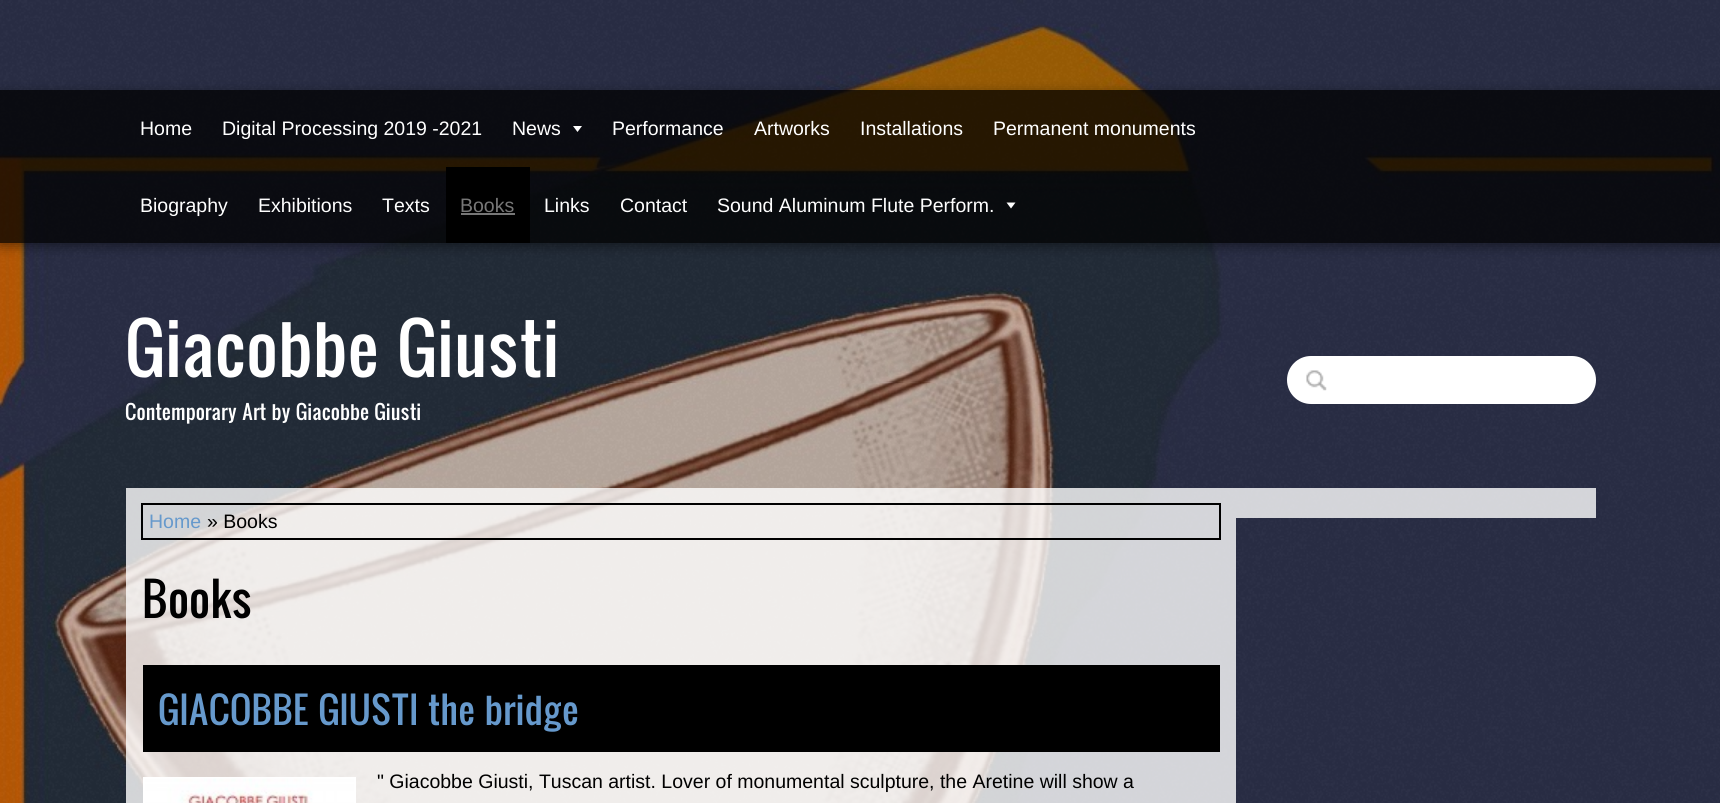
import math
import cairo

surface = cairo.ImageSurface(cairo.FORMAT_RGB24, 1720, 803)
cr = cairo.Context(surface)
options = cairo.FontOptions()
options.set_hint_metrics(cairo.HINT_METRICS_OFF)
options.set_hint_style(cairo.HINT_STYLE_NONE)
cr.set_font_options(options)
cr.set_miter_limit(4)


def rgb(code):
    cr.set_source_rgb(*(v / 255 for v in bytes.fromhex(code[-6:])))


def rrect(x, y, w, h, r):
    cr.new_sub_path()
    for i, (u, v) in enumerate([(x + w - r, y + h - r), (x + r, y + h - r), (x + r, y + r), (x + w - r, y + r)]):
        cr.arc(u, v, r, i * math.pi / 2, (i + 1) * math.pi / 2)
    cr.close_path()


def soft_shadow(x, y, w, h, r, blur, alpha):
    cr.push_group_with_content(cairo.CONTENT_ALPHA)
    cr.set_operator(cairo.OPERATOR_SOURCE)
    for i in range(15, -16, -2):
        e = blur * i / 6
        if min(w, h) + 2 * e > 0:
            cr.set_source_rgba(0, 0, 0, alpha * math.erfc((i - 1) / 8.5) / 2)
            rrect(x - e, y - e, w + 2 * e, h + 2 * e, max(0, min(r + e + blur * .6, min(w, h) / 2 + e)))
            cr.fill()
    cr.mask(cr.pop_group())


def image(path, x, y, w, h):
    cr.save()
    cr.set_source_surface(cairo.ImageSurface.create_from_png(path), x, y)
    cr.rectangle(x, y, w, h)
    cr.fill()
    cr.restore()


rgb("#ffffff")
cr.paint()
image("img/1.png", 0, 0, 1720, 803)
image("img/2.png", 0, 0, 1720, 803)
cr.save()
cr.set_fill_rule(cairo.FILL_RULE_EVEN_ODD)
cr.new_path()
cr.move_to(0, 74)
cr.line_to(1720, 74)
cr.line_to(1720, 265)
cr.line_to(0, 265)
cr.close_path()
cr.move_to(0, 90)
cr.line_to(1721, 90)
cr.line_to(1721, 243)
cr.line_to(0, 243)
cr.close_path()
cr.clip()
rgb("#000000")
soft_shadow(0, 93, 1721, 153, 0, 6, 0.45)
cr.restore()
cr.set_source_rgba(0, 0, 0, 0.75)
cr.rectangle(0, 90, 1720, 153)
cr.fill()
rgb("#ffffff")
cr.new_path()
cr.move_to(573, 126)
cr.line_to(582, 126)
cr.line_to(577.5, 132)
cr.close_path()
cr.fill()
rgb("#000000")
cr.rectangle(446, 167, 84, 76)
cr.fill()
rgb("#777777")
cr.rectangle(461, 213, 54, 2)
cr.fill()
rgb("#ffffff")
cr.new_path()
cr.move_to(1006.5, 202.5)
cr.line_to(1015.5, 202.5)
cr.line_to(1011, 208.5)
cr.close_path()
cr.fill()
rrect(1287, 356, 309, 48, 24)
cr.fill()
image("img/3.png", 1306, 370, 21, 21)
cr.set_source_rgba(1, 1, 1, 0.8)
cr.rectangle(1236, 488, 360, 30)
cr.fill()
cr.rectangle(126, 488, 1110, 315)
cr.fill()
cr.rectangle(142, 504, 1078, 35)
rgb("#000000")
cr.stroke()
cr.rectangle(143, 665, 1077, 87)
cr.fill()
cr.rectangle(144, 778, 211, 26)
rgb("#ffffff")
cr.stroke()
image("img/4.png", 145, 778, 209, 25)
cr.select_font_face("Liberation Sans")
cr.set_font_size(19.5)
for x, y, s in [
    (140, 135, "Home"),
    (222, 135, "Digital Processing 2019 -2021"),
    (512, 135, "News"),
    (612, 135, "Performance"),
    (754, 135, "Artworks"),
    (860, 135, "Installations"),
    (993, 135, "Permanent monuments"),
    (140, 212, "Biography"),
    (258, 212, "Exhibitions"),
    (382, 212, "Texts"),
]:
    cr.move_to(x, y)
    cr.show_text(s)
rgb("#777777")
cr.move_to(460, 212)
cr.show_text("Books")
rgb("#ffffff")
for x, y, s in [
    (544, 212, "Links"),
    (620, 212, "Contact"),
    (717, 212, "Sound Aluminum Flute Perform."),
]:
    cr.move_to(x, y)
    cr.show_text(s)
cr.select_font_face("Oswald")
cr.set_font_size(67.5)
cr.move_to(125, 377)
cr.show_text("Giacobbe Giusti")
cr.set_font_size(19.5)
cr.move_to(125, 420)
cr.show_text("Contemporary Art by Giacobbe Giusti")
cr.select_font_face("Liberation Sans")
rgb("#6699cc")
cr.move_to(149, 528)
cr.show_text("Home")
rgb("#000000")
cr.move_to(207, 528)
cr.show_text("» Books")
cr.select_font_face("Oswald")
cr.set_font_size(45)
cr.move_to(142, 618)
cr.show_text("Books")
cr.set_font_size(36)
rgb("#6699cc")
cr.move_to(158, 725)
cr.show_text("GIACOBBE GIUSTI the bridge")
cr.select_font_face("Liberation Sans")
cr.set_font_size(19.5)
rgb("#000000")
cr.move_to(377, 788)
cr.show_text("\" Giacobbe Giusti, Tuscan artist. Lover of monumental sculpture, the Aretine will show a")
surface.write_to_png("page.png")
